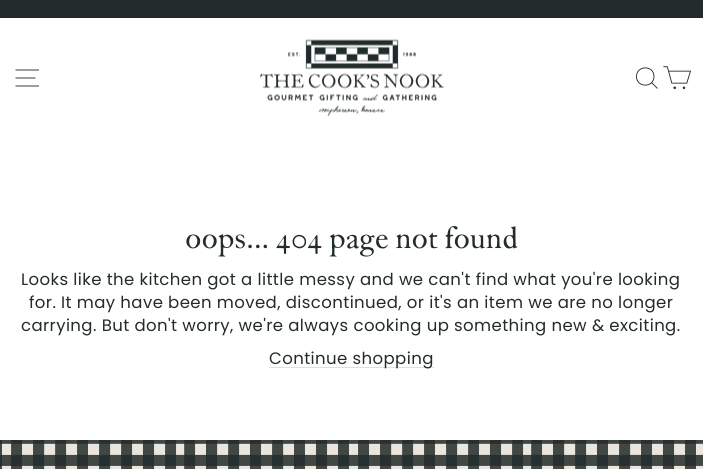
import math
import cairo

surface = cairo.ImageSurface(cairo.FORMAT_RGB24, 703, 469)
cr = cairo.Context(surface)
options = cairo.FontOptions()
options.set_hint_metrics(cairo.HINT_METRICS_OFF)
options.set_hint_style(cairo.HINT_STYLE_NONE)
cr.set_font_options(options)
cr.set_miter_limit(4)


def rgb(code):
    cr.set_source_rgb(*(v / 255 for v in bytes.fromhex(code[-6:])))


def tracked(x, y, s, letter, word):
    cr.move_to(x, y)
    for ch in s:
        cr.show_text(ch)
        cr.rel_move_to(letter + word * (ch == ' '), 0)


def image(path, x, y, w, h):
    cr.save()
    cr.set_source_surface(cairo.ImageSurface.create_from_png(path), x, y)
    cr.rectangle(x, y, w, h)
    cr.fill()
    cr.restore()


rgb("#ffffff")
cr.paint()
rgb("#232b2b")
cr.rectangle(0, 0, 703, 18)
cr.fill()
cr.new_path()
cr.move_to(15.5, 70)
cr.line_to(39, 70)
cr.move_to(15.5, 78)
cr.line_to(35.5, 78)
cr.move_to(15.5, 86)
cr.line_to(39, 86)
cr.set_line_width(0.9)
cr.stroke()
image("img/1.png", 260, 39, 184, 78)
cr.new_path()
cr.move_to(654, 76.5)
cr.curve_to(654, 88, 636.5, 88, 636.5, 76.5)
cr.curve_to(636.5, 65, 654, 65, 654, 76.5)
cr.close_path()
cr.move_to(657.5, 88.5)
cr.line_to(651.5, 82.5)
cr.stroke()
image("img/2.png", 663, 66, 28, 24)
rgb("#dedfdf")
cr.rectangle(269, 367, 165, 1)
cr.fill()
image("img/3.png", 0, 440, 703, 29)
cr.select_font_face("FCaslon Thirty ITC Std")
cr.set_font_size(30.6)
rgb("#232b2b")
cr.move_to(185, 248)
cr.show_text("oops... 404 page not found")
cr.select_font_face("Poppins")
cr.set_font_size(16.55)
for x, y, s in [
    (21, 285, "Looks like the kitchen got a little messy and we can't find what you're looking"),
    (29, 308, "for. It may have been moved, discontinued, or it's an item we are no longer"),
    (21, 331, "carrying. But don't worry, we're always cooking up something new & exciting."),
    (269, 364, "Continue shopping"),
]:
    tracked(x, y, s, 0.4, 0)
surface.write_to_png("page.png")
